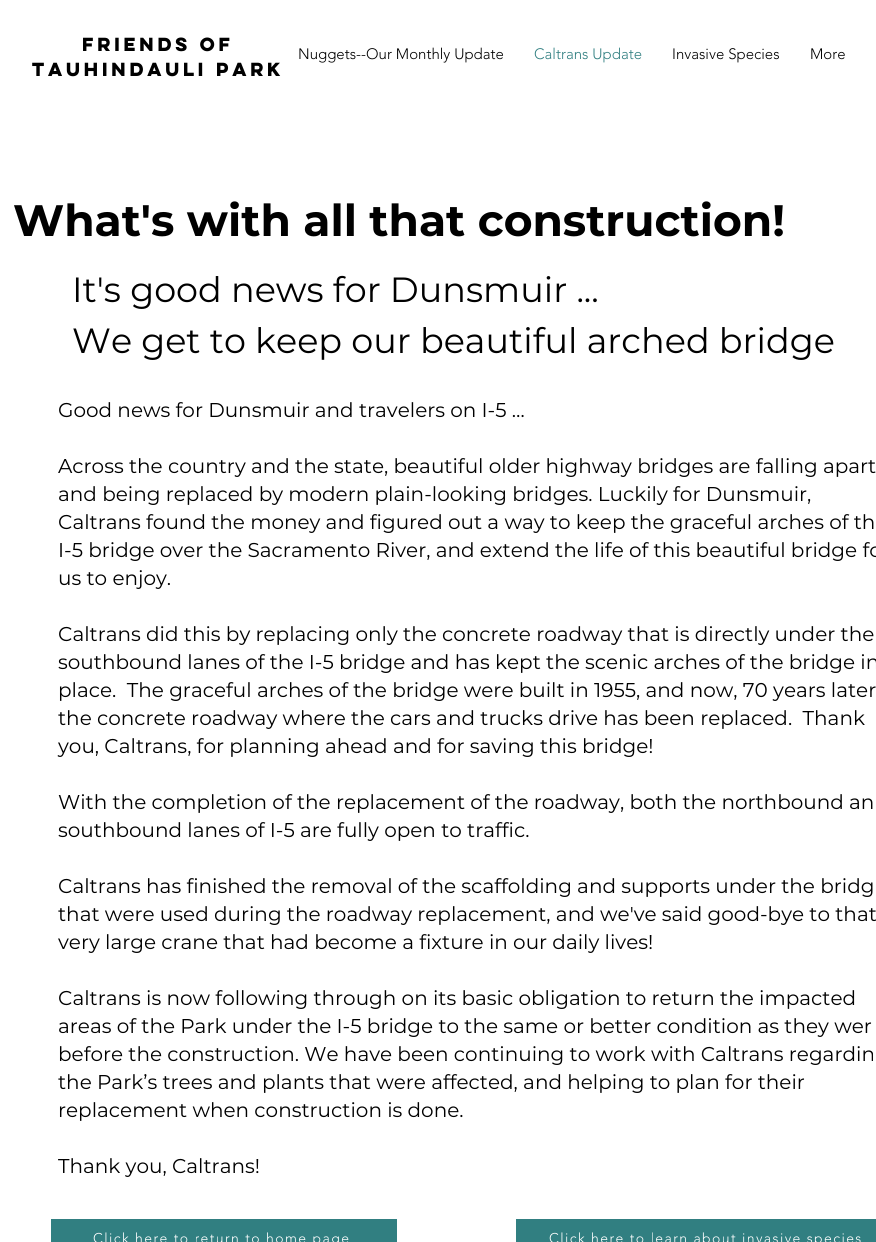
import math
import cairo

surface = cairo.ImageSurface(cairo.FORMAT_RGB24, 876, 1242)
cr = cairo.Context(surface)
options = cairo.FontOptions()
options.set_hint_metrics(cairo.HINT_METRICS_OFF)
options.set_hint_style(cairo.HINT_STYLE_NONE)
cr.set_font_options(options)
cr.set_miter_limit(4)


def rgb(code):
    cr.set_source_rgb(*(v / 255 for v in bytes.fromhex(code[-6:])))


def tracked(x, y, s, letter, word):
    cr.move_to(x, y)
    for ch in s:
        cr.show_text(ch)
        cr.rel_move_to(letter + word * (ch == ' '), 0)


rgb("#ffffff")
cr.paint()
rgb("#317f81")
cr.rectangle(51, 1219, 346, 23)
cr.fill()
cr.rectangle(516, 1219, 360, 23)
cr.fill()
cr.select_font_face("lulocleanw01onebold", cairo.FONT_SLANT_NORMAL, cairo.FONT_WEIGHT_BOLD)
cr.set_font_size(17)
rgb("#000000")
cr.move_to(82, 51)
cr.show_text("FRIENDS OF")
cr.move_to(32, 76)
cr.show_text("TAUHINDAULI PARK")
cr.select_font_face("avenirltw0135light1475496 Light")
cr.set_font_size(15)
cr.move_to(298, 59)
cr.show_text("Nuggets--Our Monthly Update")
rgb("#317f81")
cr.move_to(534, 59)
cr.show_text("Caltrans Update")
rgb("#000000")
cr.move_to(672, 59)
cr.show_text("Invasive Species")
cr.move_to(810, 59)
cr.show_text("More")
cr.select_font_face("Montserrat", cairo.FONT_SLANT_NORMAL, cairo.FONT_WEIGHT_BOLD)
cr.set_font_size(44)
cr.move_to(13, 236)
cr.show_text("What's with all that construction!")
cr.select_font_face("Montserrat")
cr.set_font_size(35)
cr.move_to(72, 302)
cr.show_text("It's good news for Dunsmuir ...")
cr.move_to(72, 353)
cr.show_text("We get to keep our beautiful arched bridge")
cr.set_font_size(20)
for x, y, s in [
    (58, 417, "Good news for Dunsmuir and travelers on I-5 …"),
    (58, 473, "Across the country and the state, beautiful older highway bridges are falling apart"),
    (58, 501, "and being replaced by modern plain-looking bridges. Luckily for Dunsmuir,"),
    (58, 529, "Caltrans found the money and figured out a way to keep the graceful arches of th"),
    (58, 557, "I-5 bridge over the Sacramento River, and extend the life of this beautiful bridge fo"),
    (58, 585, "us to enjoy."),
    (58, 641, "Caltrans did this by replacing only the concrete roadway that is directly under the"),
    (58, 669, "southbound lanes of the I-5 bridge and has kept the scenic arches of the bridge in"),
    (58, 697, "place.  The graceful arches of the bridge were built in 1955, and now, 70 years later"),
    (58, 725, "the concrete roadway where the cars and trucks drive has been replaced.  Thank"),
    (58, 753, "you, Caltrans, for planning ahead and for saving this bridge!"),
    (58, 809, "With the completion of the replacement of the roadway, both the northbound an"),
    (58, 837, "southbound lanes of I-5 are fully open to traffic."),
    (58, 893, "Caltrans has finished the removal of the scaffolding and supports under the bridg"),
    (58, 921, "that were used during the roadway replacement, and we've said good-bye to that"),
    (58, 949, "very large crane that had become a fixture in our daily lives!"),
    (58, 1005, "Caltrans is now following through on its basic obligation to return the impacted"),
    (58, 1033, "areas of the Park under the I-5 bridge to the same or better condition as they wer"),
    (58, 1061, "before the construction. We have been continuing to work with Caltrans regardin"),
    (58, 1089, "the Park’s trees and plants that were affected, and helping to plan for their"),
    (58, 1117, "replacement when construction is done."),
    (58, 1173, "Thank you, Caltrans!"),
]:
    cr.move_to(x, y)
    cr.show_text(s)
cr.select_font_face("avenirltw0135light1475496 Light")
cr.set_font_size(14)
rgb("#ffffff")
tracked(93, 1243, "Click here to return to home page", 1.4, 0)
tracked(549, 1243, "Click here to learn about invasive species", 1.4, 0)
surface.write_to_png("page.png")
